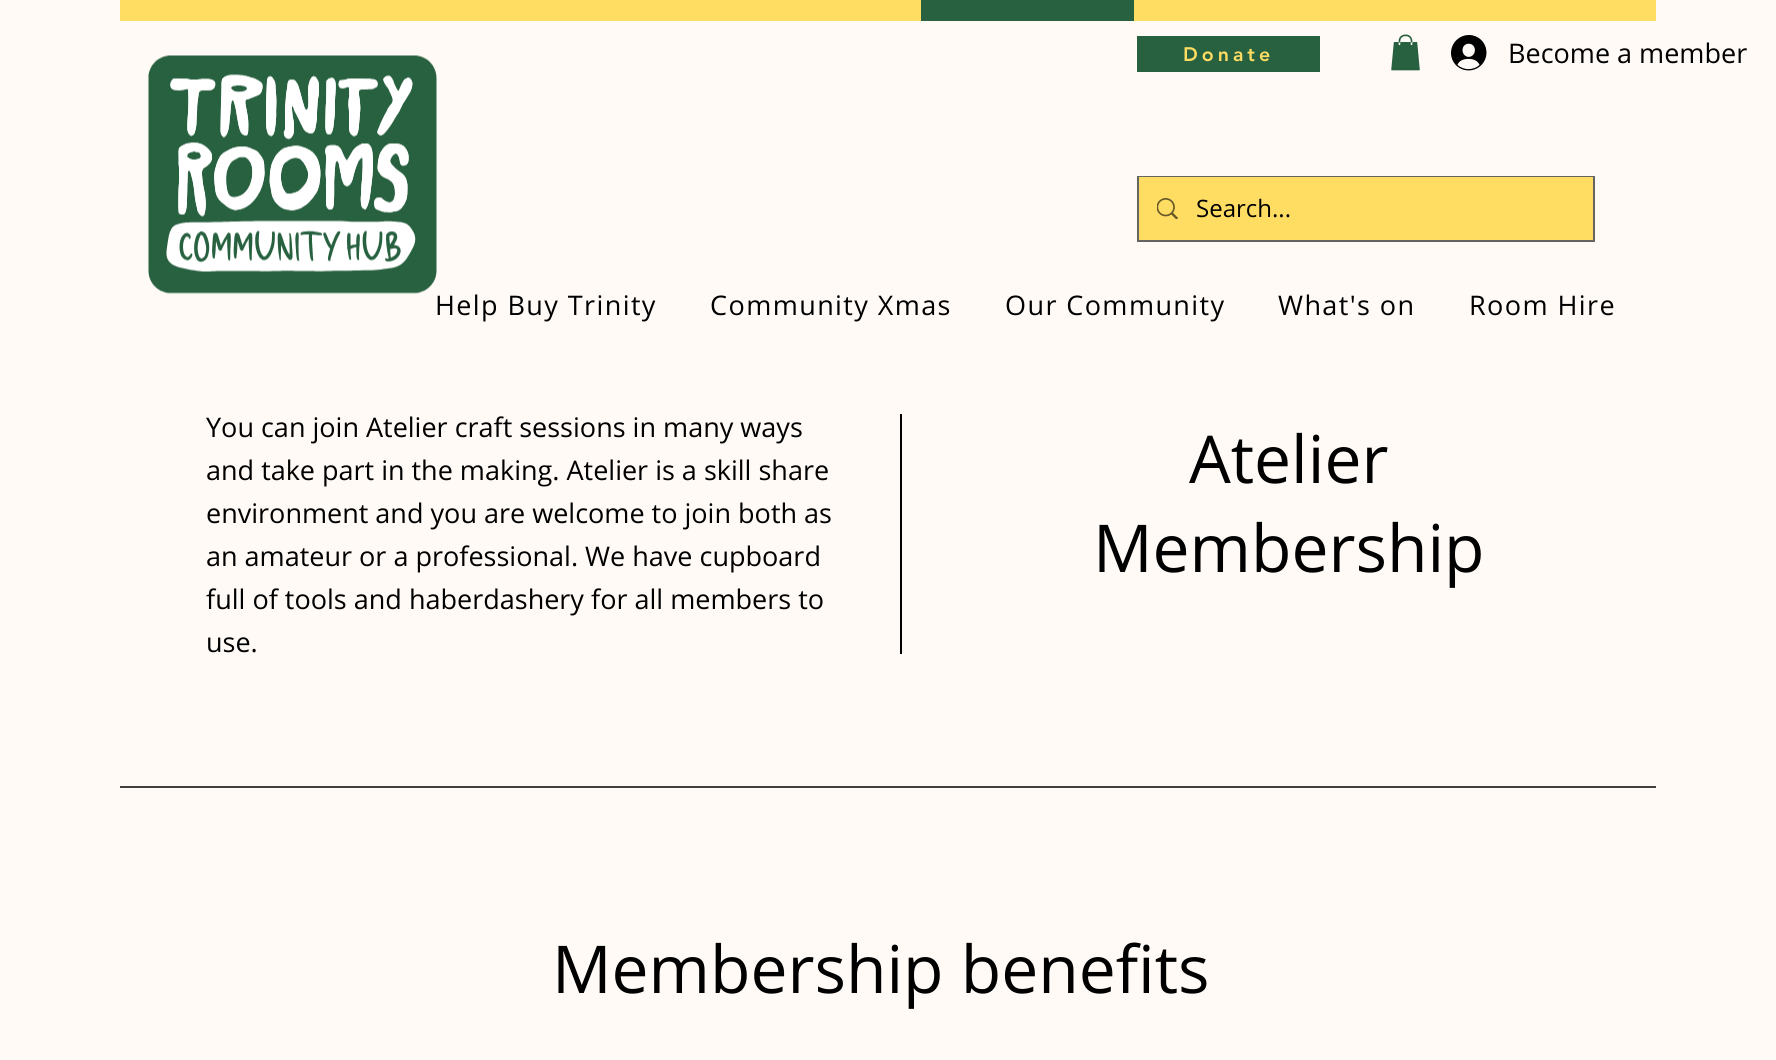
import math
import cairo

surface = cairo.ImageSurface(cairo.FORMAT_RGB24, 1776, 1060)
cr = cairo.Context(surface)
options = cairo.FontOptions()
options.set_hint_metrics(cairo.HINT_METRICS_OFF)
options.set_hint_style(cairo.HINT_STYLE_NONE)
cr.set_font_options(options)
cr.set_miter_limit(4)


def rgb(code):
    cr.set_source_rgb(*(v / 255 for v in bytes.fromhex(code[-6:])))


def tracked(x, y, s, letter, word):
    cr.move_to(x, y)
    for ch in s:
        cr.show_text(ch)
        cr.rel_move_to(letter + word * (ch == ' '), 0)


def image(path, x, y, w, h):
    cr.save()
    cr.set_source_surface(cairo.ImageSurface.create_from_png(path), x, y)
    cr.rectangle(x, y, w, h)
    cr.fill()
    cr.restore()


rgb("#fffaf6")
cr.paint()
image("img/1.png", 148, 55, 289, 239)
rgb("#286140")
cr.rectangle(1137, 36, 183, 36)
cr.fill()
image("img/2.png", 1391, 34, 29, 37)
image("img/3.png", 1451, 35, 36, 36)
cr.rectangle(1138, 177, 456, 64)
rgb("#666462")
cr.stroke()
rgb("#ffdc62")
cr.rectangle(1139, 177, 454, 63)
cr.fill()
image("img/4.png", 1157, 198, 21, 21)
for x, y, w, h, color in [
    (120, 0, 1536, 21, "#ffdc62"),
    (921, 0, 213, 21, "#286140"),
    (900, 414, 2, 240, "#000000"),
    (120, 786, 1536, 2, "#404040"),
]:
    rgb(color)
    cr.rectangle(x, y, w, h)
    cr.fill()
cr.select_font_face("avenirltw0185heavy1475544 Black")
cr.set_font_size(19.5)
rgb("#ffdc62")
tracked(1183, 61, "Donate", 4, 0)
cr.select_font_face("Open Sans")
cr.set_font_size(27)
rgb("#000000")
cr.move_to(1508, 63)
cr.show_text("Become a member")
cr.set_font_size(24)
cr.move_to(1196, 217)
cr.show_text("Search...")
cr.set_font_size(27)
for x, y, s in [
    (435, 315, "Help Buy Trinity"),
    (710, 315, "Community Xmas"),
    (1005, 315, "Our Community"),
    (1278, 315, "What's on"),
    (1469, 315, "Room Hire"),
]:
    tracked(x, y, s, 1.4, 0)
for x, y, s in [
    (206, 437, "You can join Atelier craft sessions in many ways"),
    (206, 480, "and take part in the making. Atelier is a skill share"),
    (206, 523, "environment and you are welcome to join both as"),
    (206, 566, "an amateur or a professional. We have cupboard"),
    (206, 609, "full of tools and haberdashery for all members to"),
    (206, 652, "use."),
]:
    cr.move_to(x, y)
    cr.show_text(s)
cr.set_font_size(66)
for x, y, s in [
    (1189, 483, "Atelier"),
    (1093, 572, "Membership"),
    (552, 993, "Membership benefits"),
]:
    cr.move_to(x, y)
    cr.show_text(s)
surface.write_to_png("page.png")
